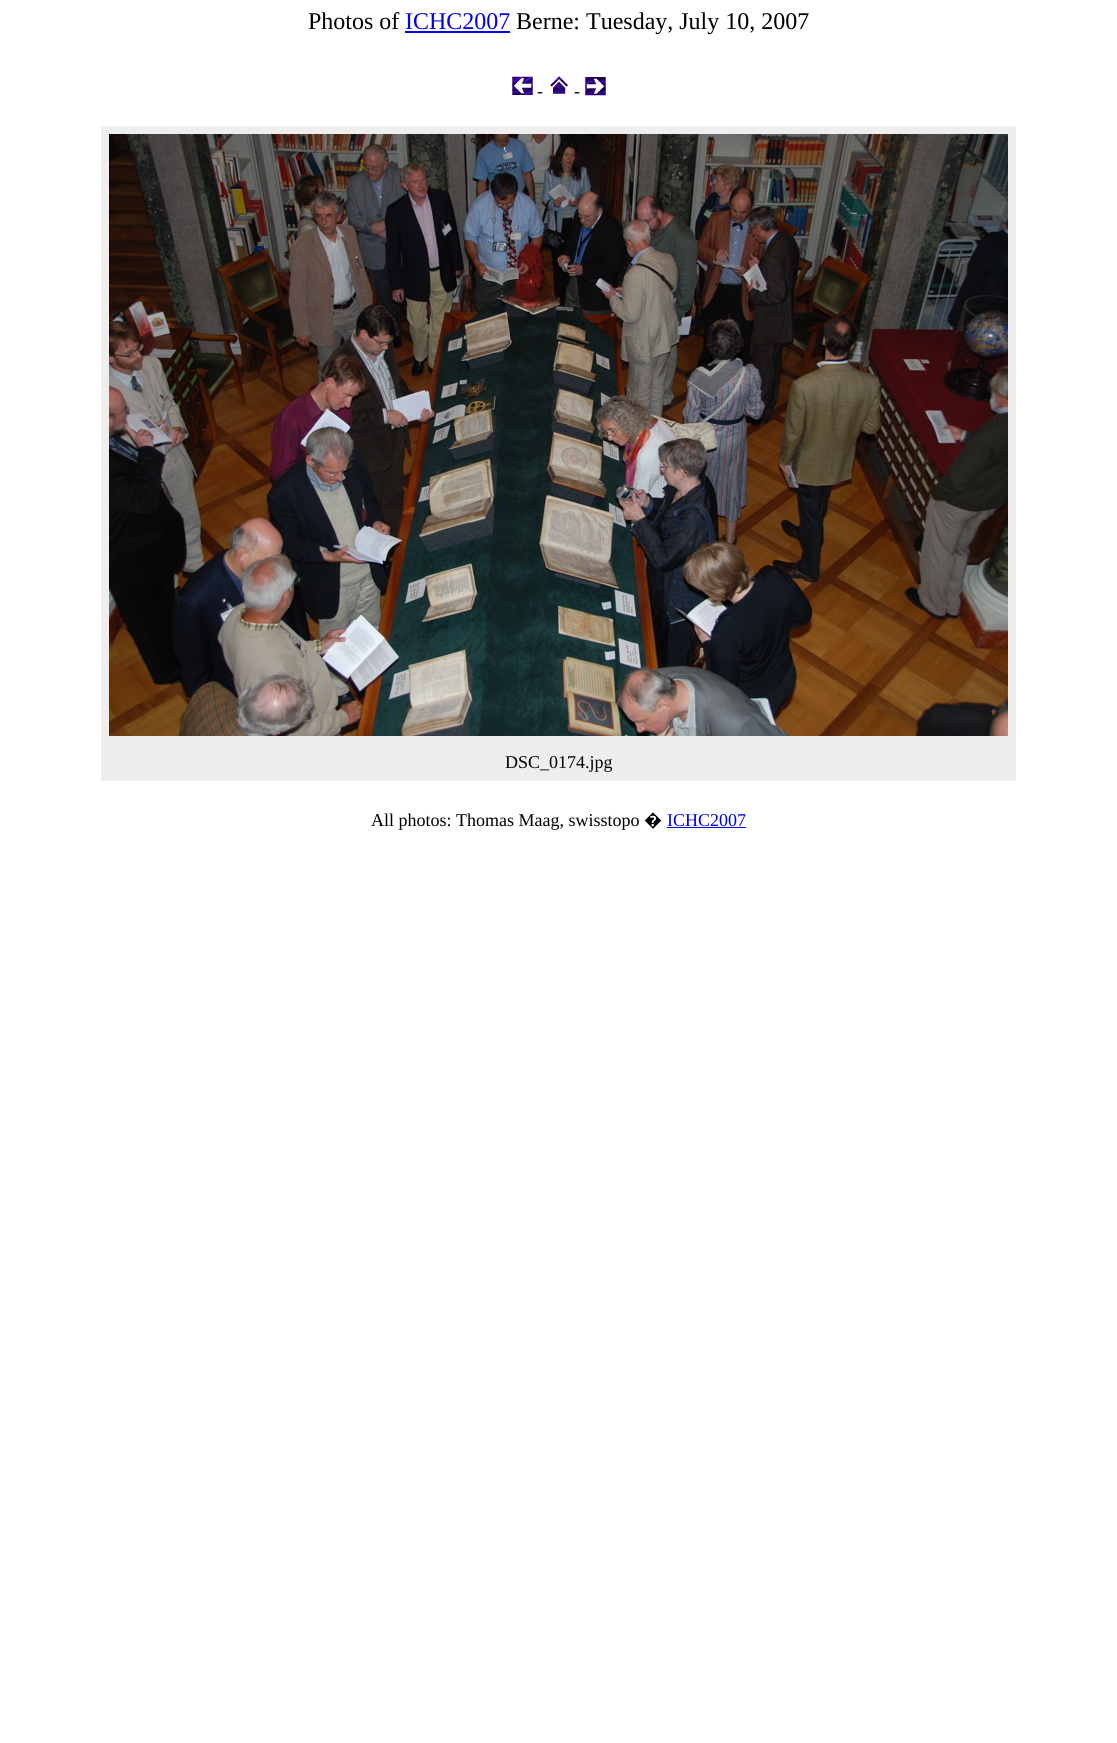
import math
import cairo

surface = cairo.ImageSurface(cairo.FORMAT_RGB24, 1117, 1743)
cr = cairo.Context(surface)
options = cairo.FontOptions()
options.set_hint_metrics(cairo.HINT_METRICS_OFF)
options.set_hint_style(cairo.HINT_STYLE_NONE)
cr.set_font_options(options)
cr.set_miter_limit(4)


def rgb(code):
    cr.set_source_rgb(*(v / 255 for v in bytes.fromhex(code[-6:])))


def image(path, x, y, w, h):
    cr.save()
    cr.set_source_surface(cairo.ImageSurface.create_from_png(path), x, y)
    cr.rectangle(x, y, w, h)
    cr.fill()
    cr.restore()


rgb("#ffffff")
cr.paint()
rgb("#0000ee")
cr.rectangle(405, 31, 105, 2)
cr.fill()
image("img/1.png", 512, 76, 21, 19)
image("img/2.png", 550, 76, 18, 18)
image("img/3.png", 585, 77, 21, 19)
rgb("#eeeeee")
cr.rectangle(101, 126, 915, 655)
cr.fill()
image("img/4.png", 109, 134, 899, 602)
rgb("#0000ee")
cr.rectangle(667, 827, 79, 1)
cr.fill()
cr.select_font_face("Liberation Serif")
cr.set_font_size(24)
rgb("#000000")
cr.move_to(308, 29)
cr.show_text("Photos of")
rgb("#0000ee")
cr.move_to(405, 29)
cr.show_text("ICHC2007")
rgb("#000000")
cr.move_to(516, 29)
cr.show_text("Berne: Tuesday, July 10, 2007")
cr.set_font_size(18)
for x, y, s in [
    (537, 97, "-"),
    (574, 97, "-"),
    (505, 768, "DSC_0174.jpg"),
    (371, 826, "All photos: Thomas Maag, swisstopo"),
]:
    cr.move_to(x, y)
    cr.show_text(s)
cr.select_font_face("Noto Sans")
cr.move_to(644, 826)
cr.show_text("�")
cr.select_font_face("Liberation Serif")
rgb("#0000ee")
cr.move_to(667, 826)
cr.show_text("ICHC2007")
surface.write_to_png("page.png")
